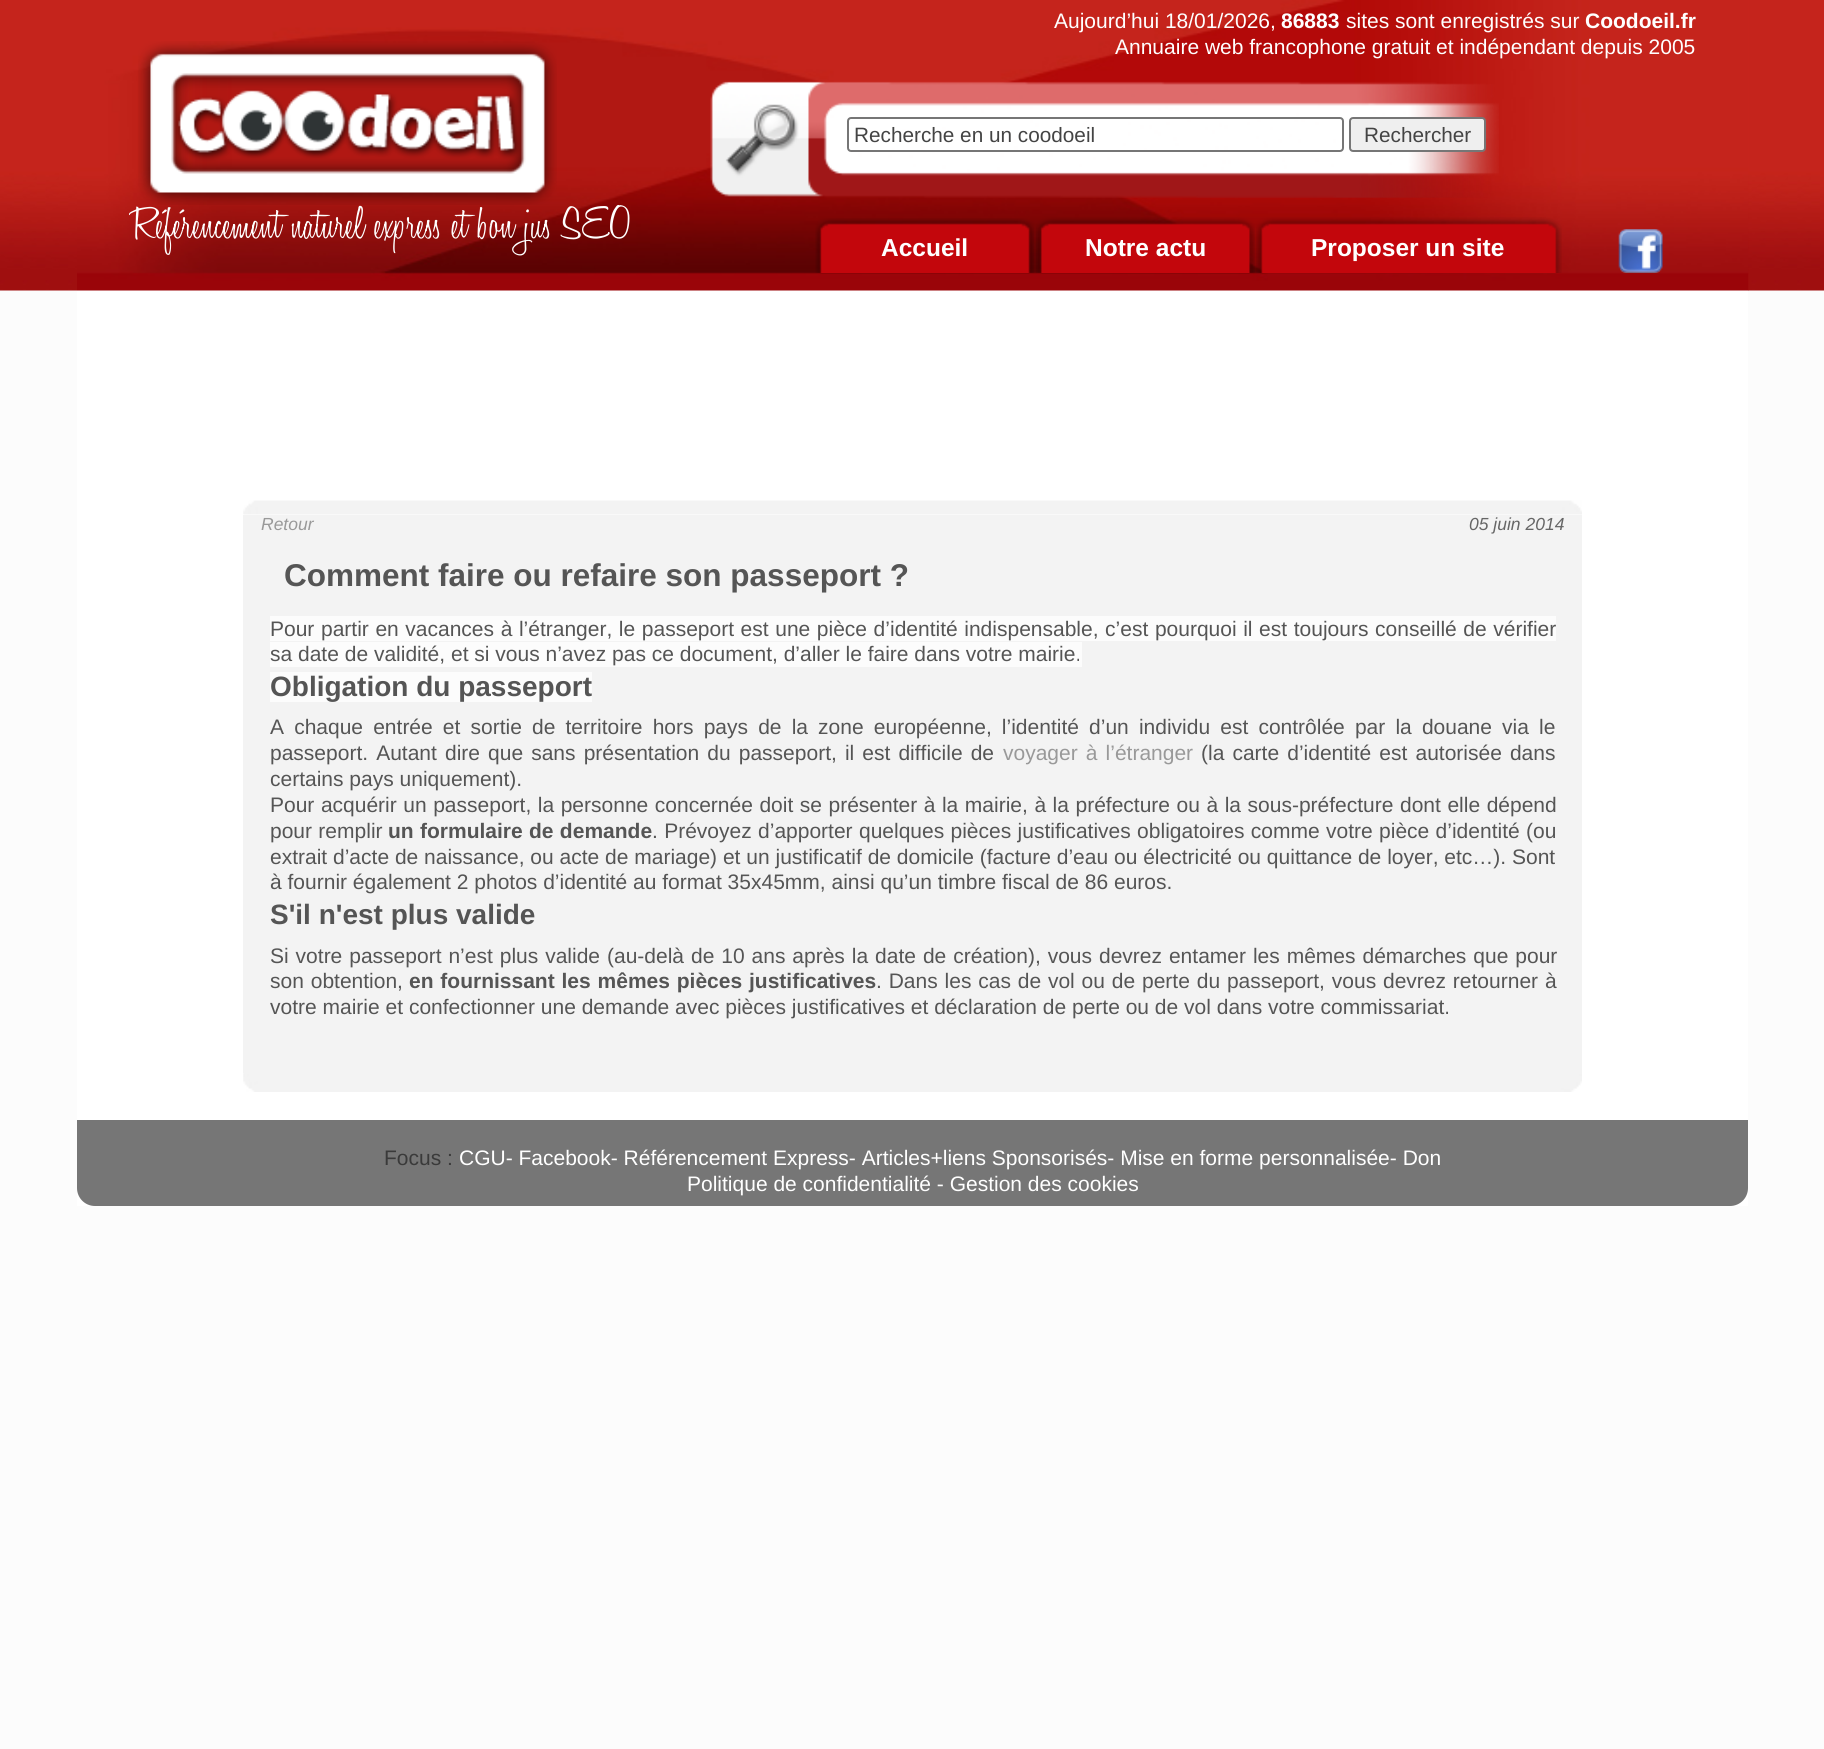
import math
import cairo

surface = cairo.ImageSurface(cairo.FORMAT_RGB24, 1824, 1749)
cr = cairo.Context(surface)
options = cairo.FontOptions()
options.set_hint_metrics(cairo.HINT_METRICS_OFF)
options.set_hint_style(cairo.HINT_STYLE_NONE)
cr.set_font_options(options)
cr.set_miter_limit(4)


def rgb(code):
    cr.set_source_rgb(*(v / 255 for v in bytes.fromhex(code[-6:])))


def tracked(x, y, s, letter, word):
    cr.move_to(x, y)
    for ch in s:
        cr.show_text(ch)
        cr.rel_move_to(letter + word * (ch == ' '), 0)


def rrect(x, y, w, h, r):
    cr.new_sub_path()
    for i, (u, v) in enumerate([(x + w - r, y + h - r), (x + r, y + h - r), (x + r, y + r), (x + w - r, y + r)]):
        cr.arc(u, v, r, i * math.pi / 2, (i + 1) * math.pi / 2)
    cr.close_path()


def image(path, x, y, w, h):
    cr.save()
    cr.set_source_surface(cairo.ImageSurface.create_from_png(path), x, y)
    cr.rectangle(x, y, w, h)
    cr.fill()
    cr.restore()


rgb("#fcfcfc")
cr.paint()
image("img/1.png", 0, 0, 1824, 291)
rgb("#ffffff")
cr.rectangle(77, 290, 1671, 916)
cr.fill()
image("img/2.png", 77, 0, 1672, 291)
image("img/3.png", 138, 41, 419, 164)
image("img/4.png", 710, 81, 789, 117)
rrect(848, 118, 495, 33, 3)
rgb("#767676")
cr.stroke()
rgb("#efefef")
rrect(1350, 118, 135, 33, 3)
cr.fill_preserve()
rgb("#767676")
cr.stroke()
image("img/5.png", 815, 218, 219, 55)
image("img/6.png", 1036, 217, 219, 56)
image("img/7.png", 1256, 217, 306, 56)
image("img/8.png", 1618, 229, 45, 44)
image("img/9.png", 243, 500, 1339, 15)
for x, y, w, h, color in [
    (243, 515, 1339, 558, "#f3f3f3"),
    (270, 616, 1286, 25, "#fcfcfc"),
    (270, 642, 812, 25, "#fcfcfc"),
    (270, 672, 322, 30, "#fcfcfc"),
]:
    rgb(color)
    cr.rectangle(x, y, w, h)
    cr.fill()
image("img/10.png", 243, 1073, 1339, 19)
rgb("#767676")
cr.new_path()
cr.move_to(77, 1120)
cr.line_to(1748, 1120)
cr.line_to(1748, 1188)
cr.curve_to(1748, 1198, 1740, 1206, 1730, 1206)
cr.line_to(95, 1206)
cr.curve_to(85, 1206, 77, 1198, 77, 1188)
cr.close_path()
cr.fill()
cr.select_font_face("Liberation Sans")
cr.set_font_size(21)
rgb("#ffffff")
cr.move_to(1054, 28)
cr.show_text("Aujourd’hui 18/01/2026,")
cr.select_font_face("Liberation Sans", cairo.FONT_SLANT_NORMAL, cairo.FONT_WEIGHT_BOLD)
cr.move_to(1281, 28)
cr.show_text("86883")
cr.select_font_face("Liberation Sans")
cr.move_to(1346, 28)
cr.show_text("sites sont enregistrés sur")
cr.select_font_face("Liberation Sans", cairo.FONT_SLANT_NORMAL, cairo.FONT_WEIGHT_BOLD)
cr.move_to(1585, 28)
cr.show_text("Coodoeil.fr")
cr.select_font_face("Liberation Sans")
cr.move_to(1115, 54)
cr.show_text("Annuaire web francophone gratuit et indépendant depuis 2005")
cr.set_font_size(20.75)
rgb("#444444")
cr.move_to(854, 142)
cr.show_text("Recherche en un coodoeil")
cr.move_to(1364, 142)
cr.show_text("Rechercher")
cr.select_font_face("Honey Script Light")
cr.set_font_size(47.25)
rgb("#ffffff")
cr.move_to(130, 238)
cr.show_text("Référencement naturel express et bon jus SEO")
cr.select_font_face("Liberation Sans", cairo.FONT_SLANT_NORMAL, cairo.FONT_WEIGHT_BOLD)
cr.set_font_size(24.5)
for x, y, s in [
    (881, 256, "Accueil"),
    (1085, 256, "Notre actu"),
    (1311, 256, "Proposer un site"),
]:
    cr.move_to(x, y)
    cr.show_text(s)
cr.select_font_face("Liberation Sans", cairo.FONT_SLANT_ITALIC)
cr.set_font_size(17.5)
rgb("#999999")
cr.move_to(261, 530)
cr.show_text("Retour")
rgb("#666666")
cr.move_to(1469, 530)
cr.show_text("05 juin 2014")
cr.select_font_face("Liberation Sans", cairo.FONT_SLANT_NORMAL, cairo.FONT_WEIGHT_BOLD)
cr.set_font_size(31.5)
rgb("#555555")
cr.move_to(284, 586)
cr.show_text("Comment faire ou refaire son passeport ?")
cr.select_font_face("Liberation Sans")
cr.set_font_size(21)
tracked(270, 636, "Pour partir en vacances à l’étranger, le passeport est une pièce d’identité indispensable, c’est pourquoi il est toujours conseillé de vérifier", 0, 0.75)
cr.move_to(270, 661)
cr.show_text("sa date de validité, et si vous n’avez pas ce document, d’aller le faire dans votre mairie.")
cr.select_font_face("Liberation Sans", cairo.FONT_SLANT_NORMAL, cairo.FONT_WEIGHT_BOLD)
cr.set_font_size(28)
cr.move_to(270, 696)
cr.show_text("Obligation du passeport")
cr.select_font_face("Liberation Sans")
cr.set_font_size(21)
tracked(270, 734, "A chaque entrée et sortie de territoire hors pays de la zone européenne, l’identité d’un individu est contrôlée par la douane via le", 0, 4.3)
tracked(270, 760, "passeport. Autant dire que sans présentation du passeport, il est difficile de", 0, 2.25)
rgb("#999999")
tracked(1003, 760, "voyager à l’étranger", 0, 2.25)
rgb("#555555")
tracked(1201, 760, "(la carte d’identité est autorisée dans", 0, 2.25)
cr.move_to(270, 786)
cr.show_text("certains pays uniquement).")
tracked(270, 812, "Pour acquérir un passeport, la personne concernée doit se présenter à la mairie, à la préfecture ou à la sous-préfecture dont elle dépend", 0, 0.7)
tracked(270, 838, "pour remplir", 0, 0.5)
cr.select_font_face("Liberation Sans", cairo.FONT_SLANT_NORMAL, cairo.FONT_WEIGHT_BOLD)
tracked(388, 838, "un formulaire de demande", 0, 0.5)
cr.select_font_face("Liberation Sans")
tracked(652, 838, ". Prévoyez d’apporter quelques pièces justificatives obligatoires comme votre pièce d’identité (ou", 0, 0.5)
cr.move_to(270, 864)
cr.show_text("extrait d’acte de naissance, ou acte de mariage) et un justificatif de domicile (facture d’eau ou électricité ou quittance de loyer, etc…). Sont")
cr.move_to(270, 889)
cr.show_text("à fournir également 2 photos d’identité au format 35x45mm, ainsi qu’un timbre fiscal de 86 euros.")
cr.select_font_face("Liberation Sans", cairo.FONT_SLANT_NORMAL, cairo.FONT_WEIGHT_BOLD)
cr.set_font_size(28)
cr.move_to(270, 924)
cr.show_text("S'il n'est plus valide")
cr.select_font_face("Liberation Sans")
cr.set_font_size(21)
tracked(270, 963, "Si votre passeport n’est plus valide (au-delà de 10 ans après la date de création), vous devrez entamer les mêmes démarches que pour", 0, 1.1)
tracked(270, 988, "son obtention,", 0, 1)
cr.select_font_face("Liberation Sans", cairo.FONT_SLANT_NORMAL, cairo.FONT_WEIGHT_BOLD)
tracked(409, 988, "en fournissant les mêmes pièces justificatives", 0, 1)
cr.select_font_face("Liberation Sans")
tracked(876, 988, ". Dans les cas de vol ou de perte du passeport, vous devrez retourner à", 0, 1)
cr.move_to(270, 1014)
cr.show_text("votre mairie et confectionner une demande avec pièces justificatives et déclaration de perte ou de vol dans votre commissariat.")
rgb("#3a3a3a")
cr.move_to(384, 1165)
cr.show_text("Focus :")
rgb("#ffffff")
cr.move_to(459, 1165)
cr.show_text("CGU- Facebook- Référencement Express- Articles+liens Sponsorisés- Mise en forme personnalisée- Don")
cr.move_to(687, 1191)
cr.show_text("Politique de confidentialité - Gestion des cookies")
surface.write_to_png("page.png")
